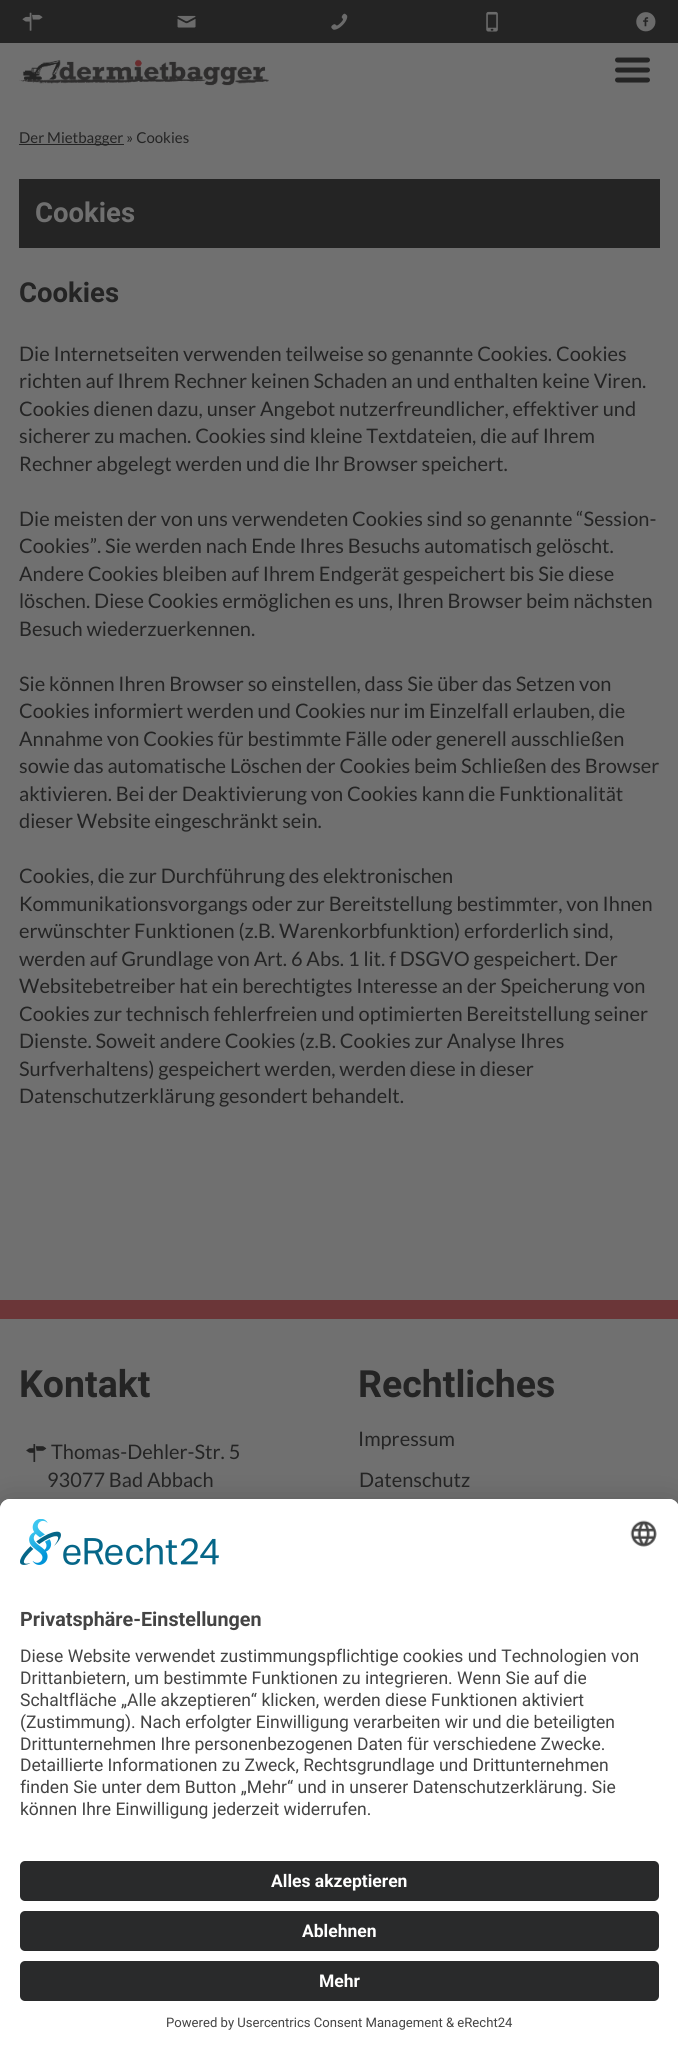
import math
import cairo

surface = cairo.ImageSurface(cairo.FORMAT_RGB24, 678, 2051)
cr = cairo.Context(surface)
options = cairo.FontOptions()
options.set_hint_metrics(cairo.HINT_METRICS_OFF)
options.set_hint_style(cairo.HINT_STYLE_NONE)
cr.set_font_options(options)
cr.set_miter_limit(4)


def rgb(code):
    cr.set_source_rgb(*(v / 255 for v in bytes.fromhex(code[-6:])))


def rrect(x, y, w, h, r):
    cr.new_sub_path()
    for i, (u, v) in enumerate([(x + w - r, y + h - r), (x + r, y + h - r), (x + r, y + r), (x + w - r, y + r)]):
        cr.arc(u, v, r, i * math.pi / 2, (i + 1) * math.pi / 2)
    cr.close_path()


def soft_shadow(x, y, w, h, r, blur, alpha):
    cr.push_group_with_content(cairo.CONTENT_ALPHA)
    cr.set_operator(cairo.OPERATOR_SOURCE)
    for i in range(15, -16, -2):
        e = blur * i / 6
        if min(w, h) + 2 * e > 0:
            cr.set_source_rgba(0, 0, 0, alpha * math.erfc((i - 1) / 8.5) / 2)
            rrect(x - e, y - e, w + 2 * e, h + 2 * e, max(0, min(r + e + blur * .6, min(w, h) / 2 + e)))
            cr.fill()
    cr.mask(cr.pop_group())


def image(path, x, y, w, h):
    cr.save()
    cr.set_source_surface(cairo.ImageSurface.create_from_png(path), x, y)
    cr.rectangle(x, y, w, h)
    cr.fill()
    cr.restore()


rgb("#707070")
cr.paint()
rgb("#242424")
cr.rectangle(0, 0, 678, 43)
cr.fill()
image("img/1.png", 22, 12, 21, 19)
image("img/2.png", 177, 15, 19, 13)
image("img/3.png", 331, 13, 17, 17)
image("img/4.png", 486, 11, 12, 21)
image("img/5.png", 636, 12, 20, 20)
image("img/6.png", 19, 59, 250, 27)
image("img/7.png", 615, 57, 35, 26)
for x, y, w, h, color in [
    (19, 144, 105, 1, "#242424"),
    (19, 179, 641, 69, "#242424"),
    (0, 1300, 678, 19, "#6b3638"),
]:
    rgb(color)
    cr.rectangle(x, y, w, h)
    cr.fill()
image("img/8.png", 26, 1444, 21, 18)
rgb("#000000")
soft_shadow(0, 1505, 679, 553, 10, 16, 0.22)
rgb("#ffffff")
cr.new_path()
cr.move_to(10, 1499)
cr.line_to(669, 1499)
cr.curve_to(674.5, 1499, 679, 1503.5, 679, 1509)
cr.line_to(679, 2051)
cr.line_to(0, 2051)
cr.line_to(0, 1509)
cr.curve_to(0, 1503.5, 4.5, 1499, 10, 1499)
cr.close_path()
cr.fill()
cr.new_path()
cr.move_to(10, 1499)
cr.line_to(669, 1499)
cr.curve_to(674.5, 1499, 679, 1503.5, 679, 1509)
cr.line_to(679, 1846)
cr.line_to(0, 1846)
cr.line_to(0, 1509)
cr.curve_to(0, 1503.5, 4.5, 1499, 10, 1499)
cr.close_path()
cr.fill()
image("img/9.png", 20, 1519, 199, 46)
image("img/10.png", 630, 1520, 27, 27)
rgb("#292a2b")
rrect(20, 1861, 639, 40, 5)
cr.fill()
rrect(20, 1911, 639, 40, 5)
cr.fill()
rrect(20, 1961, 639, 40, 5)
cr.fill()
cr.select_font_face("Lato")
cr.set_font_size(15)
rgb("#242424")
cr.move_to(19, 143)
cr.show_text("Der Mietbagger » Cookies")
cr.select_font_face("Roboto", cairo.FONT_SLANT_NORMAL, cairo.FONT_WEIGHT_BOLD)
cr.set_font_size(27.5)
rgb("#707070")
cr.move_to(35, 222)
cr.show_text("Cookies")
rgb("#242424")
cr.move_to(19, 302)
cr.show_text("Cookies")
cr.select_font_face("Lato")
cr.set_font_size(20)
for x, y, s in [
    (19, 361, "Die Internetseiten verwenden teilweise so genannte Cookies. Cookies"),
    (19, 388, "richten auf Ihrem Rechner keinen Schaden an und enthalten keine Viren."),
    (19, 416, "Cookies dienen dazu, unser Angebot nutzerfreundlicher, effektiver und"),
    (19, 443, "sicherer zu machen. Cookies sind kleine Textdateien, die auf Ihrem"),
    (19, 471, "Rechner abgelegt werden und die Ihr Browser speichert."),
    (19, 526, "Die meisten der von uns verwendeten Cookies sind so genannte “Session-"),
    (19, 553, "Cookies”. Sie werden nach Ende Ihres Besuchs automatisch gelöscht."),
    (19, 581, "Andere Cookies bleiben auf Ihrem Endgerät gespeichert bis Sie diese"),
    (19, 608, "löschen. Diese Cookies ermöglichen es uns, Ihren Browser beim nächsten"),
    (19, 636, "Besuch wiederzuerkennen."),
    (19, 691, "Sie können Ihren Browser so einstellen, dass Sie über das Setzen von"),
    (19, 718, "Cookies informiert werden und Cookies nur im Einzelfall erlauben, die"),
    (19, 746, "Annahme von Cookies für bestimmte Fälle oder generell ausschließen"),
    (19, 773, "sowie das automatische Löschen der Cookies beim Schließen des Browser"),
    (19, 801, "aktivieren. Bei der Deaktivierung von Cookies kann die Funktionalität"),
    (19, 828, "dieser Website eingeschränkt sein."),
    (19, 883, "Cookies, die zur Durchführung des elektronischen"),
    (19, 911, "Kommunikationsvorgangs oder zur Bereitstellung bestimmter, von Ihnen"),
    (19, 938, "erwünschter Funktionen (z.B. Warenkorbfunktion) erforderlich sind,"),
    (19, 966, "werden auf Grundlage von Art. 6 Abs. 1 lit. f DSGVO gespeichert. Der"),
    (19, 993, "Websitebetreiber hat ein berechtigtes Interesse an der Speicherung von"),
    (19, 1021, "Cookies zur technisch fehlerfreien und optimierten Bereitstellung seiner"),
    (19, 1048, "Dienste. Soweit andere Cookies (z.B. Cookies zur Analyse Ihres"),
    (19, 1076, "Surfverhaltens) gespeichert werden, werden diese in dieser"),
    (19, 1103, "Datenschutzerklärung gesondert behandelt."),
]:
    cr.move_to(x, y)
    cr.show_text(s)
cr.select_font_face("Roboto", cairo.FONT_SLANT_NORMAL, cairo.FONT_WEIGHT_BOLD)
cr.set_font_size(37.5)
cr.move_to(19, 1397)
cr.show_text("Kontakt")
cr.select_font_face("Lato")
cr.set_font_size(20)
cr.move_to(51, 1459)
cr.show_text("Thomas-Dehler-Str. 5")
cr.move_to(47, 1487)
cr.show_text("93077 Bad Abbach")
cr.select_font_face("Roboto", cairo.FONT_SLANT_NORMAL, cairo.FONT_WEIGHT_BOLD)
cr.set_font_size(37.5)
cr.move_to(358, 1397)
cr.show_text("Rechtliches")
cr.select_font_face("Lato")
cr.set_font_size(20)
cr.move_to(358, 1446)
cr.show_text("Impressum")
cr.move_to(359, 1487)
cr.show_text("Datenschutz")
cr.select_font_face("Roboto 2", cairo.FONT_SLANT_NORMAL, cairo.FONT_WEIGHT_BOLD)
cr.set_font_size(19.75)
rgb("#444444")
cr.move_to(20, 1626)
cr.show_text("Privatsphäre-Einstellungen")
cr.select_font_face("Roboto")
cr.set_font_size(17.5)
for x, y, s in [
    (20, 1662, "Diese Website verwendet zustimmungspflichtige cookies und Technologien von"),
    (20, 1684, "Drittanbietern, um bestimmte Funktionen zu integrieren. Wenn Sie auf die"),
    (20, 1706, "Schaltfläche „Alle akzeptieren“ klicken, werden diese Funktionen aktiviert"),
    (20, 1728, "(Zustimmung). Nach erfolgter Einwilligung verarbeiten wir und die beteiligten"),
    (20, 1750, "Drittunternehmen Ihre personenbezogenen Daten für verschiedene Zwecke."),
    (20, 1771, "Detaillierte Informationen zu Zweck, Rechtsgrundlage und Drittunternehmen"),
    (20, 1793, "finden Sie unter dem Button „Mehr“ und in unserer Datenschutzerklärung. Sie"),
    (20, 1815, "können Ihre Einwilligung jederzeit widerrufen."),
]:
    cr.move_to(x, y)
    cr.show_text(s)
cr.select_font_face("Roboto 2", cairo.FONT_SLANT_NORMAL, cairo.FONT_WEIGHT_BOLD)
rgb("#ffffff")
for x, y, s in [
    (271, 1887, "Alles akzeptieren"),
    (302, 1937, "Ablehnen"),
    (319, 1987, "Mehr"),
]:
    cr.move_to(x, y)
    cr.show_text(s)
cr.select_font_face("Roboto")
cr.set_font_size(13.1)
rgb("#444444")
cr.move_to(166, 2027)
cr.show_text("Powered by Usercentrics Consent Management & eRecht24")
surface.write_to_png("page.png")
